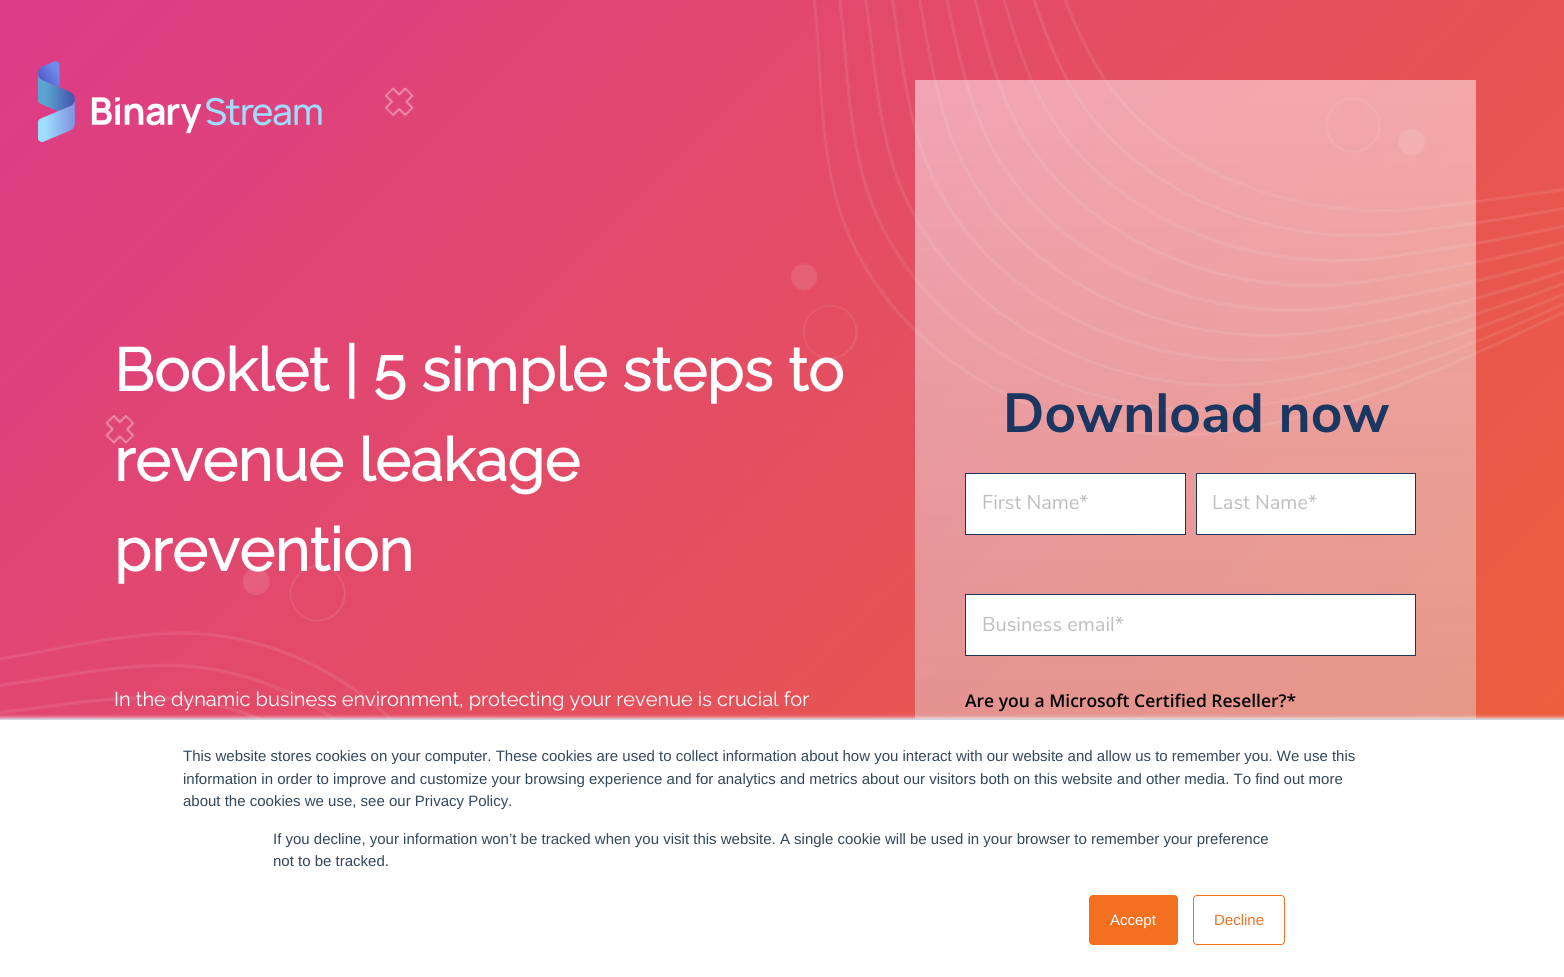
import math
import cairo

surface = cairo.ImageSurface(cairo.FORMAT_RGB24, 1564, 977)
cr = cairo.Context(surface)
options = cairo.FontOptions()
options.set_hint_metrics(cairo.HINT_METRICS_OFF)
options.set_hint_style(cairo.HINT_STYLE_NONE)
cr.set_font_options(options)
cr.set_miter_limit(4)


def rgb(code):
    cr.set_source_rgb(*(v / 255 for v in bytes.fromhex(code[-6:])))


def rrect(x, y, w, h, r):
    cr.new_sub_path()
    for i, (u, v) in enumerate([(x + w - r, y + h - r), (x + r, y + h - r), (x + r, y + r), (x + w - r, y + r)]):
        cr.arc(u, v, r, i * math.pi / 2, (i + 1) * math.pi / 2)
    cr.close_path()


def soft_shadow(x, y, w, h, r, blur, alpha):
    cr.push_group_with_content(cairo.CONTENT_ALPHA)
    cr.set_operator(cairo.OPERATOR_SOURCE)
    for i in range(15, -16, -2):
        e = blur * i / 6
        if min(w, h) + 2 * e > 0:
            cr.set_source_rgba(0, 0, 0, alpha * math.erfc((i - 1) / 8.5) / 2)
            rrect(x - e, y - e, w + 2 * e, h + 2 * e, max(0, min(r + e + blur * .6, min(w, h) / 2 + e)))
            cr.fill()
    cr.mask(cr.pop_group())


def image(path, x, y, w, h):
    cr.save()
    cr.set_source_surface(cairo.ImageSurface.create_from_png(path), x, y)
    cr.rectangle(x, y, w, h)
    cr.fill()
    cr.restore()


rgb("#ffffff")
cr.paint()
image("img/2.png", 0, 0, 1564, 719)
image("img/1.png", 38, 61, 284, 81)
rgb("#ffffff")
cr.rectangle(965.5, 473.5, 220, 61)
cr.fill_preserve()
rgb("#1a3661")
cr.set_line_width(1)
cr.stroke()
rgb("#ffffff")
cr.rectangle(1196.5, 473.5, 219, 61)
cr.fill_preserve()
rgb("#1a3661")
cr.stroke()
rgb("#ffffff")
cr.rectangle(965.5, 594.5, 450, 61)
cr.fill_preserve()
rgb("#1a3661")
cr.stroke()
rgb("#eaf0f6")
soft_shadow(0, 718, 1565, 258, 0, 2, 1)
rgb("#ffffff")
cr.rectangle(0, 720, 1564, 257)
cr.fill()
rgb("#cbd6e2")
cr.rectangle(0, 719, 1564, 1)
cr.fill()
rgb("#f37021")
rrect(1089.5, 895.5, 88, 49, 3.5)
cr.fill_preserve()
cr.stroke()
rrect(1193.5, 895.5, 91, 49, 3.5)
cr.stroke()
cr.select_font_face("Raleway", cairo.FONT_SLANT_NORMAL, cairo.FONT_WEIGHT_BOLD)
cr.set_font_size(60)
rgb("#ffffff")
for x, y, s in [
    (114, 391, "Booklet | 5 simple steps to"),
    (114, 481, "revenue leakage"),
    (114, 571, "prevention"),
]:
    cr.move_to(x, y)
    cr.show_text(s)
cr.select_font_face("Raleway Thin")
cr.set_font_size(20)
cr.move_to(114, 706)
cr.show_text("In the dynamic business environment, protecting your revenue is crucial for")
cr.select_font_face("Nunito Sans", cairo.FONT_SLANT_NORMAL, cairo.FONT_WEIGHT_BOLD)
cr.set_font_size(55)
rgb("#1a3661")
cr.move_to(1003, 432)
cr.show_text("Download now")
cr.select_font_face("Nunito Sans")
cr.set_font_size(20)
rgb("#bfbfbf")
for x, y, s in [
    (982, 509, "First Name*"),
    (1212, 509, "Last Name*"),
    (982, 631, "Business email*"),
]:
    cr.move_to(x, y)
    cr.show_text(s)
cr.select_font_face("Open Sans SemiBold")
cr.set_font_size(17.5)
rgb("#000000")
cr.move_to(965, 707)
cr.show_text("Are you a Microsoft Certified Reseller?*")
cr.select_font_face("Liberation Sans")
cr.set_font_size(15)
rgb("#33475b")
for x, y, s in [
    (183, 761, "This website stores cookies on your computer. These cookies are used to collect information about how you interact with our website and allow us to remember you. We use this"),
    (183, 784, "information in order to improve and customize your browsing experience and for analytics and metrics about our visitors both on this website and other media. To find out more"),
    (183, 806, "about the cookies we use, see our Privacy Policy."),
    (273, 844, "If you decline, your information won’t be tracked when you visit this website. A single cookie will be used in your browser to remember your preference"),
    (273, 866, "not to be tracked."),
]:
    cr.move_to(x, y)
    cr.show_text(s)
rgb("#ffffff")
cr.move_to(1110, 925)
cr.show_text("Accept")
rgb("#f37021")
cr.move_to(1214, 925)
cr.show_text("Decline")
surface.write_to_png("page.png")
